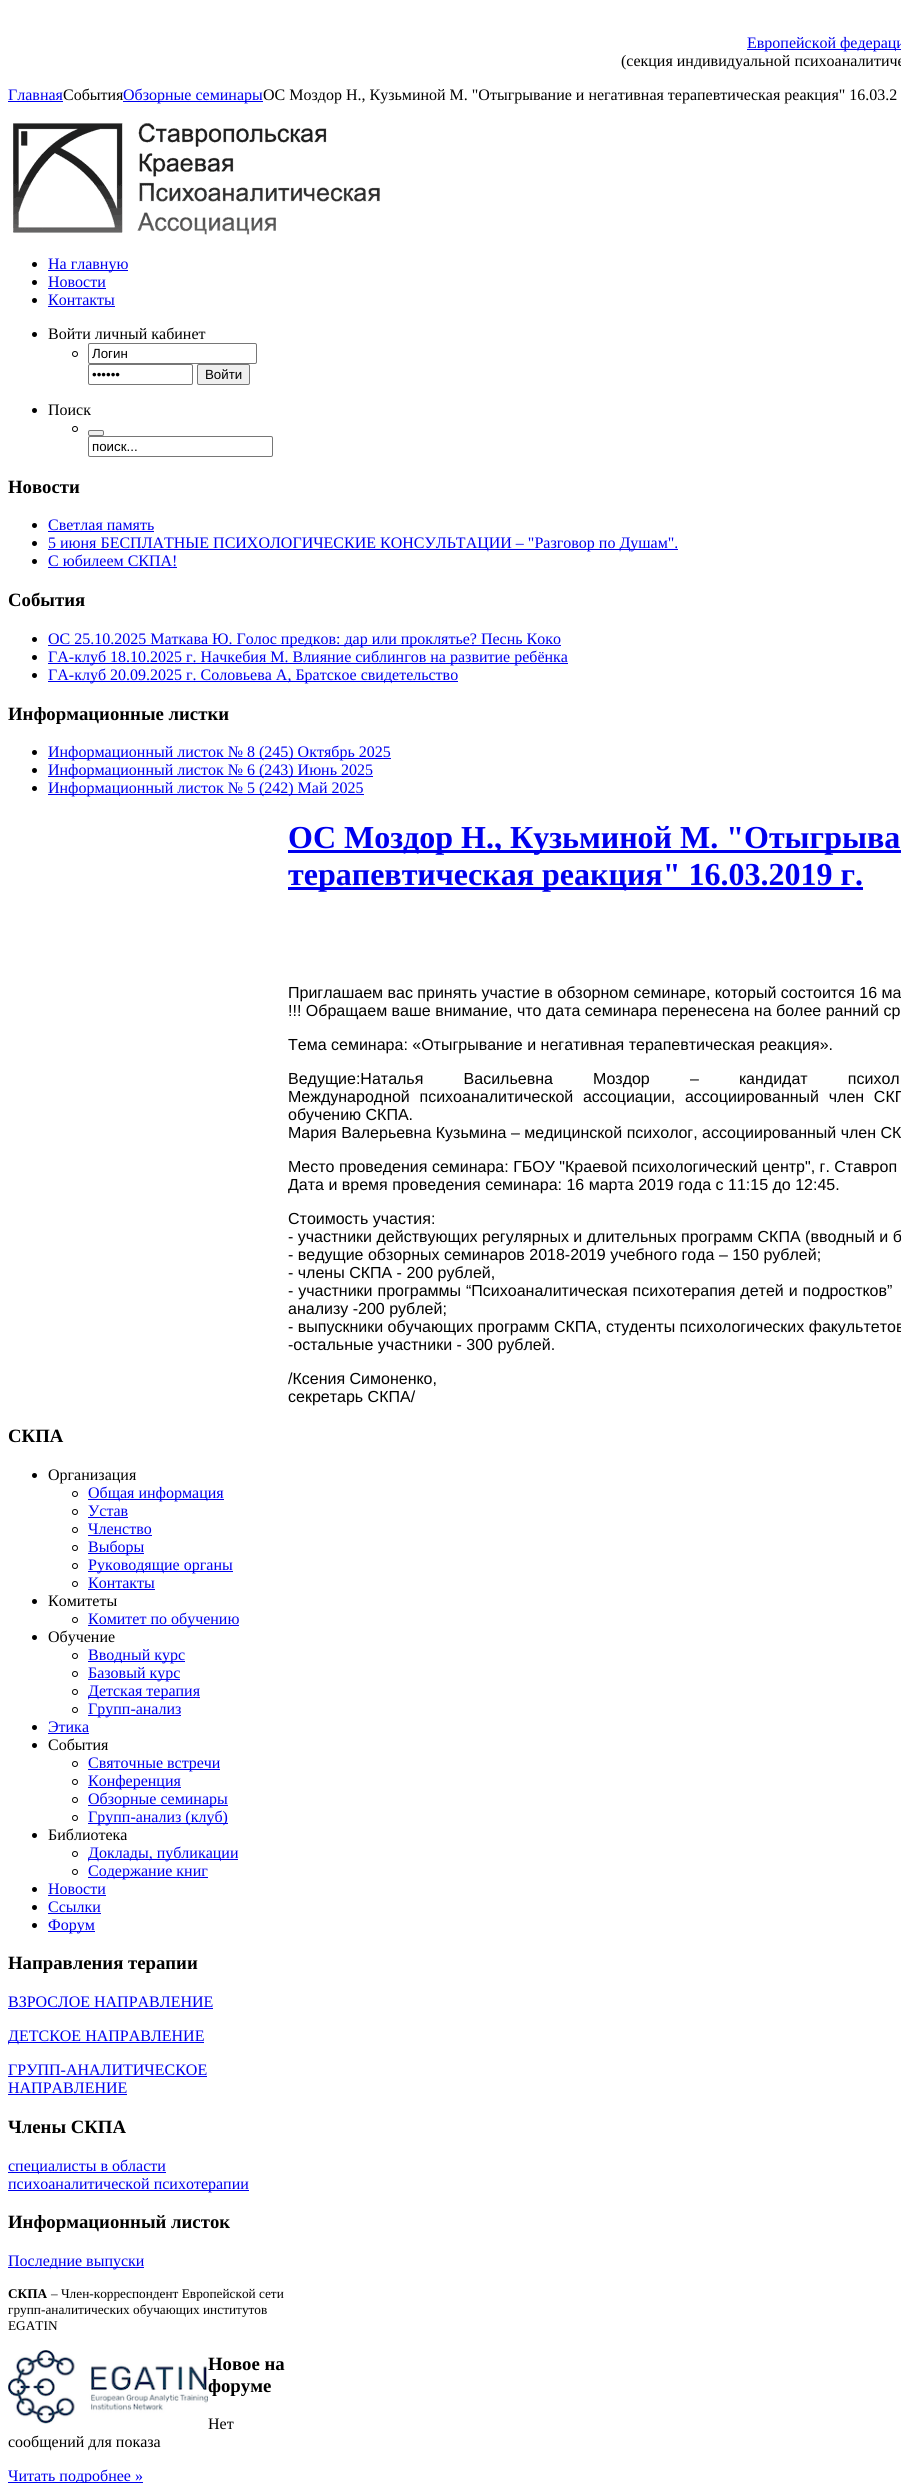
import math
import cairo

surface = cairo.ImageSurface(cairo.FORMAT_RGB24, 901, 2483)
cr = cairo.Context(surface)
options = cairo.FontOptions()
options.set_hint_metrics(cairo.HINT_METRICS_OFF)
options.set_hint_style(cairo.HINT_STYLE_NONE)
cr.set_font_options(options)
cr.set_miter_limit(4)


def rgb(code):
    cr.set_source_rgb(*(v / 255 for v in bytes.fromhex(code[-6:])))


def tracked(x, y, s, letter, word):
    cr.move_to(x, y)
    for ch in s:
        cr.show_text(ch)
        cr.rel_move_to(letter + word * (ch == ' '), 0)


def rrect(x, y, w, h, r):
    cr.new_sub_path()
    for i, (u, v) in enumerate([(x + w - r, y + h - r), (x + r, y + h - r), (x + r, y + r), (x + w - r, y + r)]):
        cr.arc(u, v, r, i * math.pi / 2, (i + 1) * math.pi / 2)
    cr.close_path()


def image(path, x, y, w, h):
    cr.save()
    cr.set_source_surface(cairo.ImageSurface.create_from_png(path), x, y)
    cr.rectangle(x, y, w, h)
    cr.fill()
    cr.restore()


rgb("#ffffff")
cr.paint()
for x, y, w, h, color in [
    (747, 49, 154, 1, "#0000ee"),
    (8, 101, 55, 1, "#0000ee"),
    (123, 101, 140, 1, "#0000ee"),
]:
    rgb(color)
    cr.rectangle(x, y, w, h)
    cr.fill()
image("img/1.png", 13, 123, 367, 112)
rgb("#000000")
cr.arc(34.5, 264.5, 2.5, 0, 2 * math.pi)
cr.fill()
rgb("#0000ee")
cr.rectangle(48, 270, 80, 1)
cr.fill()
rgb("#000000")
cr.arc(34.5, 282.5, 2.5, 0, 2 * math.pi)
cr.fill()
rgb("#0000ee")
cr.rectangle(48, 288, 58, 1)
cr.fill()
rgb("#000000")
cr.arc(34.5, 300.5, 2.5, 0, 2 * math.pi)
cr.fill()
rgb("#0000ee")
cr.rectangle(48, 306, 67, 1)
cr.fill()
rgb("#000000")
cr.arc(34.5, 334.5, 2.5, 0, 2 * math.pi)
cr.fill()
cr.arc(75, 354, 2.5, 0, 2 * math.pi)
cr.set_line_width(1)
cr.stroke()
rrect(88.5, 343.5, 168, 20, 1.5)
rgb("#767676")
cr.stroke()
rrect(88.5, 364.5, 104, 20, 1.5)
cr.stroke()
rgb("#efefef")
rrect(197.5, 364.5, 52, 20, 1.5)
cr.fill_preserve()
rgb("#767676")
cr.stroke()
rgb("#000000")
cr.arc(34.5, 410.5, 2.5, 0, 2 * math.pi)
cr.fill()
cr.arc(75, 429, 2.5, 0, 2 * math.pi)
cr.stroke()
rgb("#efefef")
rrect(88.5, 430.5, 15, 5, 1.5)
cr.fill_preserve()
rgb("#767676")
cr.stroke()
rrect(88.5, 436.5, 184, 20, 1.5)
cr.stroke()
rgb("#000000")
cr.arc(34.5, 525.5, 2.5, 0, 2 * math.pi)
cr.fill()
rgb("#0000ee")
cr.rectangle(48, 531, 106, 1)
cr.fill()
rgb("#000000")
cr.arc(34.5, 543.5, 2.5, 0, 2 * math.pi)
cr.fill()
rgb("#0000ee")
cr.rectangle(48, 549, 630, 1)
cr.fill()
rgb("#000000")
cr.arc(34.5, 561.5, 2.5, 0, 2 * math.pi)
cr.fill()
rgb("#0000ee")
cr.rectangle(48, 567, 129, 1)
cr.fill()
rgb("#000000")
cr.arc(34.5, 639.5, 2.5, 0, 2 * math.pi)
cr.fill()
rgb("#0000ee")
cr.rectangle(48, 645, 513, 1)
cr.fill()
rgb("#000000")
cr.arc(34.5, 657.5, 2.5, 0, 2 * math.pi)
cr.fill()
rgb("#0000ee")
cr.rectangle(48, 663, 520, 1)
cr.fill()
rgb("#000000")
cr.arc(34.5, 675.5, 2.5, 0, 2 * math.pi)
cr.fill()
rgb("#0000ee")
cr.rectangle(48, 681, 410, 1)
cr.fill()
rgb("#000000")
cr.arc(34.5, 752.5, 2.5, 0, 2 * math.pi)
cr.fill()
rgb("#0000ee")
cr.rectangle(48, 758, 343, 1)
cr.fill()
rgb("#000000")
cr.arc(34.5, 770.5, 2.5, 0, 2 * math.pi)
cr.fill()
rgb("#0000ee")
cr.rectangle(48, 776, 325, 1)
cr.fill()
rgb("#000000")
cr.arc(34.5, 788.5, 2.5, 0, 2 * math.pi)
cr.fill()
for x, y, w, h, color in [
    (48, 794, 316, 1, "#0000ee"),
    (288, 850, 613, 3, "#0000ee"),
    (288, 887, 575, 3, "#0000ee"),
]:
    rgb(color)
    cr.rectangle(x, y, w, h)
    cr.fill()
rgb("#000000")
cr.arc(34.5, 1475.5, 2.5, 0, 2 * math.pi)
cr.fill()
cr.arc(75, 1494, 2.5, 0, 2 * math.pi)
cr.stroke()
rgb("#0000ee")
cr.rectangle(88, 1499, 136, 1)
cr.fill()
cr.arc(75, 1512, 2.5, 0, 2 * math.pi)
rgb("#000000")
cr.stroke()
rgb("#0000ee")
cr.rectangle(88, 1517, 40, 1)
cr.fill()
cr.arc(75, 1530, 2.5, 0, 2 * math.pi)
rgb("#000000")
cr.stroke()
rgb("#0000ee")
cr.rectangle(88, 1535, 64, 1)
cr.fill()
cr.arc(75, 1548, 2.5, 0, 2 * math.pi)
rgb("#000000")
cr.stroke()
rgb("#0000ee")
cr.rectangle(88, 1553, 56, 1)
cr.fill()
cr.arc(75, 1566, 2.5, 0, 2 * math.pi)
rgb("#000000")
cr.stroke()
rgb("#0000ee")
cr.rectangle(88, 1571, 145, 1)
cr.fill()
cr.arc(75, 1584, 2.5, 0, 2 * math.pi)
rgb("#000000")
cr.stroke()
rgb("#0000ee")
cr.rectangle(88, 1589, 67, 1)
cr.fill()
rgb("#000000")
cr.arc(34.5, 1601.5, 2.5, 0, 2 * math.pi)
cr.fill()
cr.arc(75, 1620, 2.5, 0, 2 * math.pi)
cr.stroke()
rgb("#0000ee")
cr.rectangle(88, 1625, 151, 1)
cr.fill()
rgb("#000000")
cr.arc(34.5, 1637.5, 2.5, 0, 2 * math.pi)
cr.fill()
cr.arc(75, 1656, 2.5, 0, 2 * math.pi)
cr.stroke()
rgb("#0000ee")
cr.rectangle(88, 1661, 97, 1)
cr.fill()
cr.arc(75, 1674, 2.5, 0, 2 * math.pi)
rgb("#000000")
cr.stroke()
rgb("#0000ee")
cr.rectangle(88, 1679, 92, 1)
cr.fill()
cr.arc(75, 1692, 2.5, 0, 2 * math.pi)
rgb("#000000")
cr.stroke()
rgb("#0000ee")
cr.rectangle(88, 1697, 112, 1)
cr.fill()
cr.arc(75, 1710, 2.5, 0, 2 * math.pi)
rgb("#000000")
cr.stroke()
rgb("#0000ee")
cr.rectangle(88, 1715, 93, 1)
cr.fill()
rgb("#000000")
cr.arc(34.5, 1727.5, 2.5, 0, 2 * math.pi)
cr.fill()
rgb("#0000ee")
cr.rectangle(48, 1733, 41, 1)
cr.fill()
rgb("#000000")
cr.arc(34.5, 1745.5, 2.5, 0, 2 * math.pi)
cr.fill()
cr.arc(75, 1764, 2.5, 0, 2 * math.pi)
cr.stroke()
rgb("#0000ee")
cr.rectangle(88, 1769, 132, 1)
cr.fill()
cr.arc(75, 1782, 2.5, 0, 2 * math.pi)
rgb("#000000")
cr.stroke()
rgb("#0000ee")
cr.rectangle(88, 1787, 93, 1)
cr.fill()
cr.arc(75, 1800, 2.5, 0, 2 * math.pi)
rgb("#000000")
cr.stroke()
rgb("#0000ee")
cr.rectangle(88, 1805, 140, 1)
cr.fill()
cr.arc(75, 1818, 2.5, 0, 2 * math.pi)
rgb("#000000")
cr.stroke()
rgb("#0000ee")
cr.rectangle(88, 1823, 140, 1)
cr.fill()
rgb("#000000")
cr.arc(34.5, 1835.5, 2.5, 0, 2 * math.pi)
cr.fill()
cr.arc(75, 1854, 2.5, 0, 2 * math.pi)
cr.stroke()
rgb("#0000ee")
cr.rectangle(88, 1859, 150, 1)
cr.fill()
cr.arc(75, 1872, 2.5, 0, 2 * math.pi)
rgb("#000000")
cr.stroke()
rgb("#0000ee")
cr.rectangle(88, 1877, 120, 1)
cr.fill()
rgb("#000000")
cr.arc(34.5, 1889.5, 2.5, 0, 2 * math.pi)
cr.fill()
rgb("#0000ee")
cr.rectangle(48, 1895, 58, 1)
cr.fill()
rgb("#000000")
cr.arc(34.5, 1907.5, 2.5, 0, 2 * math.pi)
cr.fill()
rgb("#0000ee")
cr.rectangle(48, 1913, 53, 1)
cr.fill()
rgb("#000000")
cr.arc(34.5, 1925.5, 2.5, 0, 2 * math.pi)
cr.fill()
for x, y, w, h, color in [
    (48, 1931, 47, 1, "#0000ee"),
    (8, 2008, 205, 1, "#0000ee"),
    (8, 2042, 196, 1, "#0000ee"),
    (8, 2076, 199, 1, "#0000ee"),
    (8, 2094, 119, 1, "#0000ee"),
    (8, 2172, 158, 1, "#0000ee"),
    (8, 2190, 241, 1, "#0000ee"),
    (8, 2267, 136, 1, "#0000ee"),
]:
    rgb(color)
    cr.rectangle(x, y, w, h)
    cr.fill()
image("img/2.png", 8, 2350, 200, 74)
cr.rectangle(8, 2482, 135, 1)
cr.fill()
cr.select_font_face("Liberation Serif")
cr.set_font_size(16)
cr.move_to(747, 48)
cr.show_text("Европейской федераци")
rgb("#000000")
cr.move_to(621, 66)
cr.show_text("(секция индивидуальной психоаналитиче")
rgb("#0000ee")
cr.move_to(8, 100)
cr.show_text("Главная")
rgb("#000000")
cr.move_to(63, 100)
cr.show_text("События")
rgb("#0000ee")
cr.move_to(123, 100)
cr.show_text("Обзорные семинары")
rgb("#000000")
cr.move_to(263, 100)
cr.show_text("ОС Моздор Н., Кузьминой М. \"Отыгрывание и негативная терапевтическая реакция\" 16.03.2")
rgb("#0000ee")
for x, y, s in [
    (48, 269, "На главную"),
    (48, 287, "Новости"),
    (48, 305, "Контакты"),
]:
    cr.move_to(x, y)
    cr.show_text(s)
rgb("#000000")
cr.move_to(48, 339)
cr.show_text("Войти личный кабинет")
cr.select_font_face("Liberation Sans")
cr.set_font_size(13.3)
for x, y, s in [
    (92, 358, "Логин"),
    (92, 379, "••••••"),
    (205, 379, "Войти"),
]:
    cr.move_to(x, y)
    cr.show_text(s)
cr.select_font_face("Liberation Serif")
cr.set_font_size(16)
cr.move_to(48, 415)
cr.show_text("Поиск")
cr.select_font_face("Liberation Sans")
cr.set_font_size(13.3)
cr.move_to(92, 451)
cr.show_text("поиск...")
cr.select_font_face("Liberation Serif", cairo.FONT_SLANT_NORMAL, cairo.FONT_WEIGHT_BOLD)
cr.set_font_size(18.75)
cr.move_to(8, 493)
cr.show_text("Новости")
cr.select_font_face("Liberation Serif")
cr.set_font_size(16)
rgb("#0000ee")
for x, y, s in [
    (48, 530, "Светлая память"),
    (48, 548, "5 июня БЕСПЛАТНЫЕ ПСИХОЛОГИЧЕСКИЕ КОНСУЛЬТАЦИИ – \"Разговор по Душам\"."),
    (48, 566, "С юбилеем СКПА!"),
]:
    cr.move_to(x, y)
    cr.show_text(s)
cr.select_font_face("Liberation Serif", cairo.FONT_SLANT_NORMAL, cairo.FONT_WEIGHT_BOLD)
cr.set_font_size(18.75)
rgb("#000000")
cr.move_to(8, 606)
cr.show_text("События")
cr.select_font_face("Liberation Serif")
cr.set_font_size(16)
rgb("#0000ee")
for x, y, s in [
    (48, 644, "ОС 25.10.2025 Маткава Ю. Голос предков: дар или проклятье? Песнь Коко"),
    (48, 662, "ГА-клуб 18.10.2025 г. Начкебия М. Влияние сиблингов на развитие ребёнка"),
    (48, 680, "ГА-клуб 20.09.2025 г. Соловьева А, Братское свидетельство"),
]:
    cr.move_to(x, y)
    cr.show_text(s)
cr.select_font_face("Liberation Serif", cairo.FONT_SLANT_NORMAL, cairo.FONT_WEIGHT_BOLD)
cr.set_font_size(18.75)
rgb("#000000")
cr.move_to(8, 720)
cr.show_text("Информационные листки")
cr.select_font_face("Liberation Serif")
cr.set_font_size(16)
rgb("#0000ee")
for x, y, s in [
    (48, 757, "Информационный листок № 8 (245) Октябрь 2025"),
    (48, 775, "Информационный листок № 6 (243) Июнь 2025"),
    (48, 793, "Информационный листок № 5 (242) Май 2025"),
]:
    cr.move_to(x, y)
    cr.show_text(s)
cr.select_font_face("Liberation Serif", cairo.FONT_SLANT_NORMAL, cairo.FONT_WEIGHT_BOLD)
cr.set_font_size(32)
cr.move_to(288, 848)
cr.show_text("ОС Моздор Н., Кузьминой М. \"Отыгрыва")
cr.move_to(288, 885)
cr.show_text("терапевтическая реакция\" 16.03.2019 г.")
cr.select_font_face("Liberation Sans")
cr.set_font_size(16)
rgb("#000000")
for x, y, s in [
    (288, 998, "Приглашаем вас принять участие в обзорном семинаре, который состоится 16 ма"),
    (288, 1016, "!!! Обращаем ваше внимание, что дата семинара перенесена на более ранний ср"),
    (288, 1050, "Тема семинара: «Отыгрывание и негативная терапевтическая реакция»."),
]:
    cr.move_to(x, y)
    cr.show_text(s)
tracked(288, 1084, "Ведущие:Наталья Васильевна Моздор – кандидат психол", 0, 35.75)
tracked(288, 1102, "Международной психоаналитической ассоциации, ассоциированный член СКП", 0, 5.25)
for x, y, s in [
    (288, 1120, "обучению СКПА."),
    (288, 1138, "Мария Валерьевна Кузьмина – медицинской психолог, ассоциированный член СК"),
    (288, 1172, "Место проведения семинара: ГБОУ \"Краевой психологический центр\", г. Ставроп"),
    (288, 1190, "Дата и время проведения семинара: 16 марта 2019 года с 11:15 до 12:45."),
    (288, 1224, "Стоимость участия:"),
    (288, 1242, "- участники действующих регулярных и длительных программ СКПА (вводный и б"),
    (288, 1260, "- ведущие обзорных семинаров 2018-2019 учебного года – 150 рублей;"),
    (288, 1278, "- члены СКПА - 200 рублей,"),
]:
    cr.move_to(x, y)
    cr.show_text(s)
tracked(288, 1296, "- участники программы “Психоаналитическая психотерапия детей и подростков”", 0, 0.5)
for x, y, s in [
    (288, 1314, "анализу -200 рублей;"),
    (288, 1332, "- выпускники обучающих программ СКПА, студенты психологических факультетов"),
    (288, 1350, "-остальные участники - 300 рублей."),
    (288, 1384, "/Ксения Симоненко,"),
    (288, 1402, "секретарь СКПА/"),
]:
    cr.move_to(x, y)
    cr.show_text(s)
cr.select_font_face("Liberation Serif", cairo.FONT_SLANT_NORMAL, cairo.FONT_WEIGHT_BOLD)
cr.set_font_size(18.75)
cr.move_to(8, 1442)
cr.show_text("СКПА")
cr.select_font_face("Liberation Serif")
cr.set_font_size(16)
cr.move_to(48, 1480)
cr.show_text("Организация")
rgb("#0000ee")
for x, y, s in [
    (88, 1498, "Общая информация"),
    (88, 1516, "Устав"),
    (88, 1534, "Членство"),
    (88, 1552, "Выборы"),
    (88, 1570, "Руководящие органы"),
    (88, 1588, "Контакты"),
]:
    cr.move_to(x, y)
    cr.show_text(s)
rgb("#000000")
cr.move_to(48, 1606)
cr.show_text("Комитеты")
rgb("#0000ee")
cr.move_to(88, 1624)
cr.show_text("Комитет по обучению")
rgb("#000000")
cr.move_to(48, 1642)
cr.show_text("Обучение")
rgb("#0000ee")
for x, y, s in [
    (88, 1660, "Вводный курс"),
    (88, 1678, "Базовый курс"),
    (88, 1696, "Детская терапия"),
    (88, 1714, "Групп-анализ"),
    (48, 1732, "Этика"),
]:
    cr.move_to(x, y)
    cr.show_text(s)
rgb("#000000")
cr.move_to(48, 1750)
cr.show_text("События")
rgb("#0000ee")
for x, y, s in [
    (88, 1768, "Святочные встречи"),
    (88, 1786, "Конференция"),
    (88, 1804, "Обзорные семинары"),
    (88, 1822, "Групп-анализ (клуб)"),
]:
    cr.move_to(x, y)
    cr.show_text(s)
rgb("#000000")
cr.move_to(48, 1840)
cr.show_text("Библиотека")
rgb("#0000ee")
for x, y, s in [
    (88, 1858, "Доклады, публикации"),
    (88, 1876, "Содержание книг"),
    (48, 1894, "Новости"),
    (48, 1912, "Cсылки"),
    (48, 1930, "Форум"),
]:
    cr.move_to(x, y)
    cr.show_text(s)
cr.select_font_face("Liberation Serif", cairo.FONT_SLANT_NORMAL, cairo.FONT_WEIGHT_BOLD)
cr.set_font_size(18.75)
rgb("#000000")
cr.move_to(8, 1969)
cr.show_text("Направления терапии")
cr.select_font_face("Liberation Serif")
cr.set_font_size(16)
rgb("#0000ee")
for x, y, s in [
    (8, 2007, "ВЗРОСЛОЕ НАПРАВЛЕНИЕ"),
    (8, 2041, "ДЕТСКОЕ НАПРАВЛЕНИЕ"),
    (8, 2075, "ГРУПП-АНАЛИТИЧЕСКОЕ"),
    (8, 2093, "НАПРАВЛЕНИЕ"),
]:
    cr.move_to(x, y)
    cr.show_text(s)
cr.select_font_face("Liberation Serif", cairo.FONT_SLANT_NORMAL, cairo.FONT_WEIGHT_BOLD)
cr.set_font_size(18.75)
rgb("#000000")
cr.move_to(8, 2133)
cr.show_text("Члены СКПА")
cr.select_font_face("Liberation Serif")
cr.set_font_size(16)
rgb("#0000ee")
cr.move_to(8, 2171)
cr.show_text("специалисты в области")
cr.move_to(8, 2189)
cr.show_text("психоаналитической психотерапии")
cr.select_font_face("Liberation Serif", cairo.FONT_SLANT_NORMAL, cairo.FONT_WEIGHT_BOLD)
cr.set_font_size(18.75)
rgb("#000000")
cr.move_to(8, 2228)
cr.show_text("Информационный листок")
cr.select_font_face("Liberation Serif")
cr.set_font_size(16)
rgb("#0000ee")
cr.move_to(8, 2266)
cr.show_text("Последние выпуски")
cr.select_font_face("Liberation Serif", cairo.FONT_SLANT_NORMAL, cairo.FONT_WEIGHT_BOLD)
cr.set_font_size(13.3)
rgb("#000000")
cr.move_to(8, 2298)
cr.show_text("СКПА")
cr.select_font_face("Liberation Serif")
for x, y, s in [
    (51, 2298, "– Член-корреспондент Европейской сети"),
    (8, 2314, "групп-аналитических обучающих институтов"),
    (8, 2330, "EGATIN"),
]:
    cr.move_to(x, y)
    cr.show_text(s)
cr.select_font_face("Liberation Serif", cairo.FONT_SLANT_NORMAL, cairo.FONT_WEIGHT_BOLD)
cr.set_font_size(18.75)
cr.move_to(208, 2370)
cr.show_text("Новое на")
cr.move_to(208, 2392)
cr.show_text("форуме")
cr.select_font_face("Liberation Serif")
cr.set_font_size(16)
cr.move_to(208, 2429)
cr.show_text("Нет")
cr.move_to(8, 2447)
cr.show_text("сообщений для показа")
rgb("#0000ee")
cr.move_to(8, 2481)
cr.show_text("Читать подробнее »")
surface.write_to_png("page.png")
